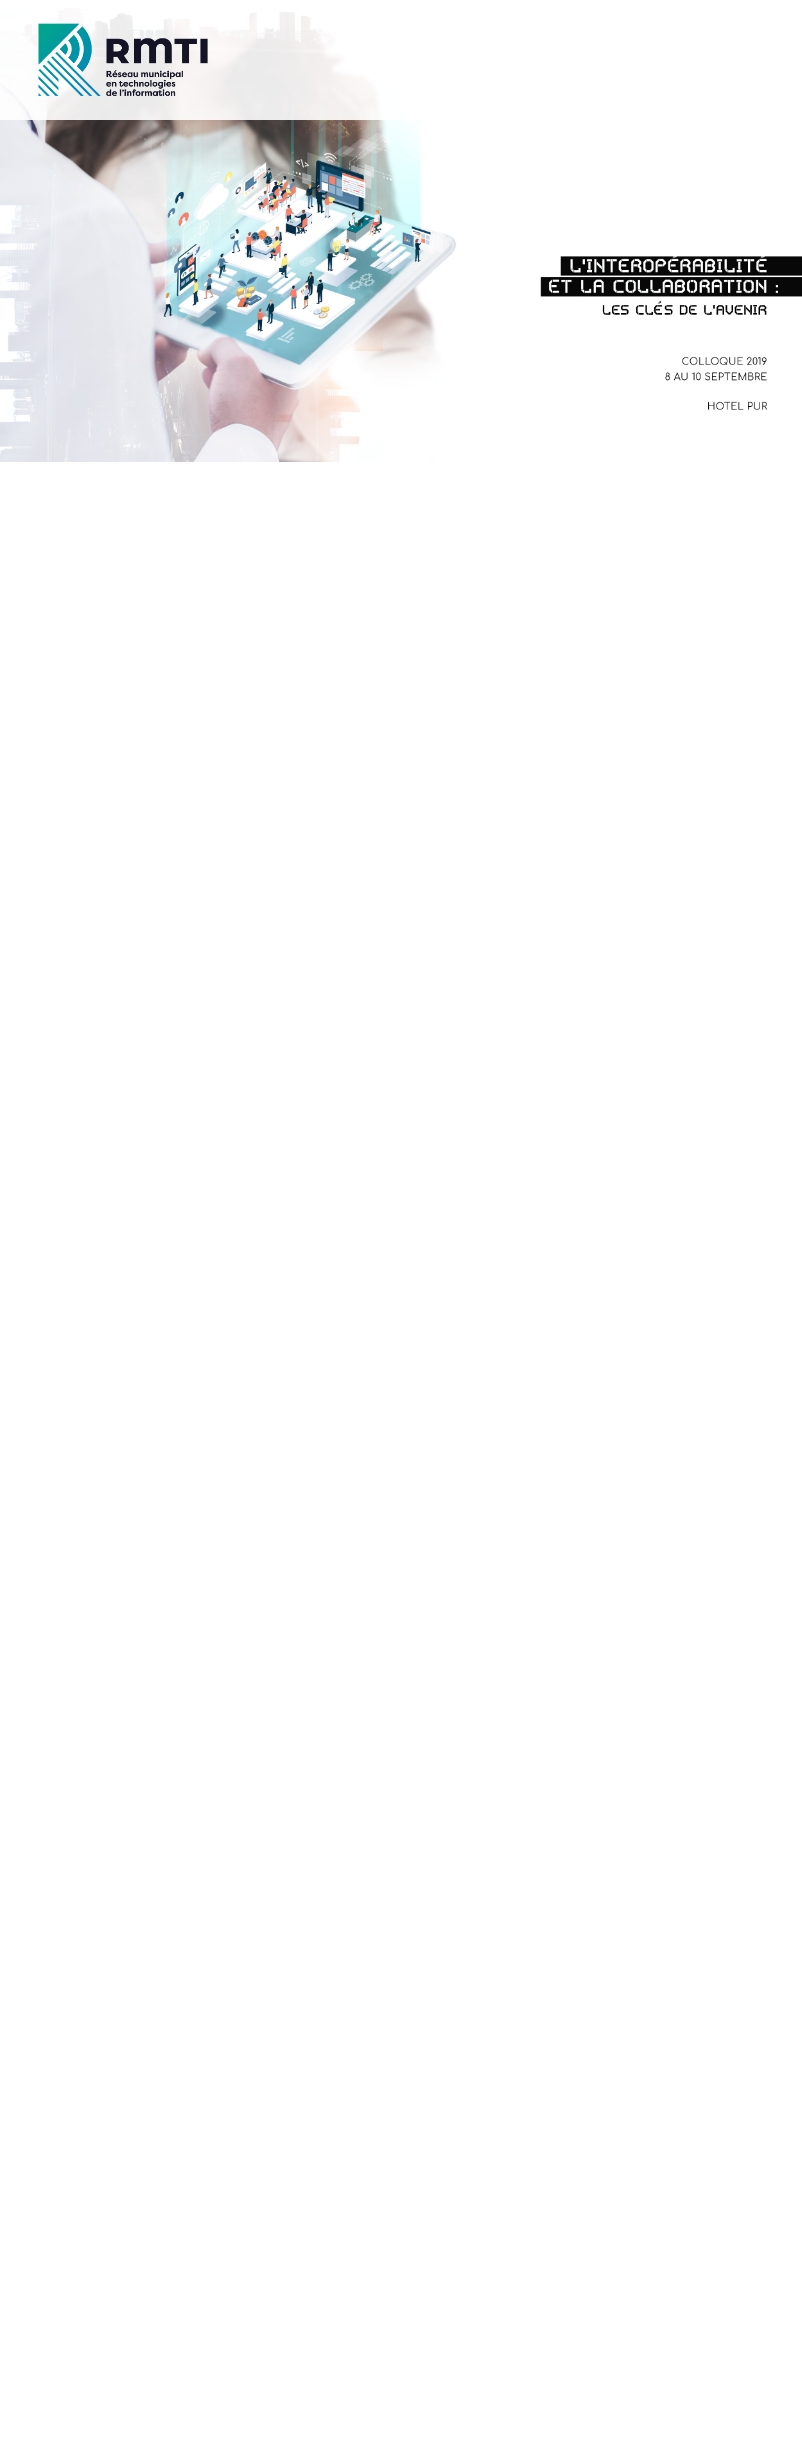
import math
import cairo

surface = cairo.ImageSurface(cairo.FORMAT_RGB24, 802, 2438)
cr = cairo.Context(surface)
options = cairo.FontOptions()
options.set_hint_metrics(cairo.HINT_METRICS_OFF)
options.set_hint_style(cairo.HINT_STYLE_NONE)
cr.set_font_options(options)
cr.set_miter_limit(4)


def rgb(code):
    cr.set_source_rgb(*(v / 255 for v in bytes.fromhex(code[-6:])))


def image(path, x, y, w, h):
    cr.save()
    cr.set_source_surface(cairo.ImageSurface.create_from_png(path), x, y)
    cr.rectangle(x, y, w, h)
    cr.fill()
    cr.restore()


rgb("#ffffff")
cr.paint()
image("img/1.png", 0, 0, 802, 462)
cr.set_source_rgba(1, 1, 1, 0.9)
cr.rectangle(0, 0, 420, 120)
cr.fill()
image("img/2.png", 38, 23, 170, 73)
surface.write_to_png("page.png")
